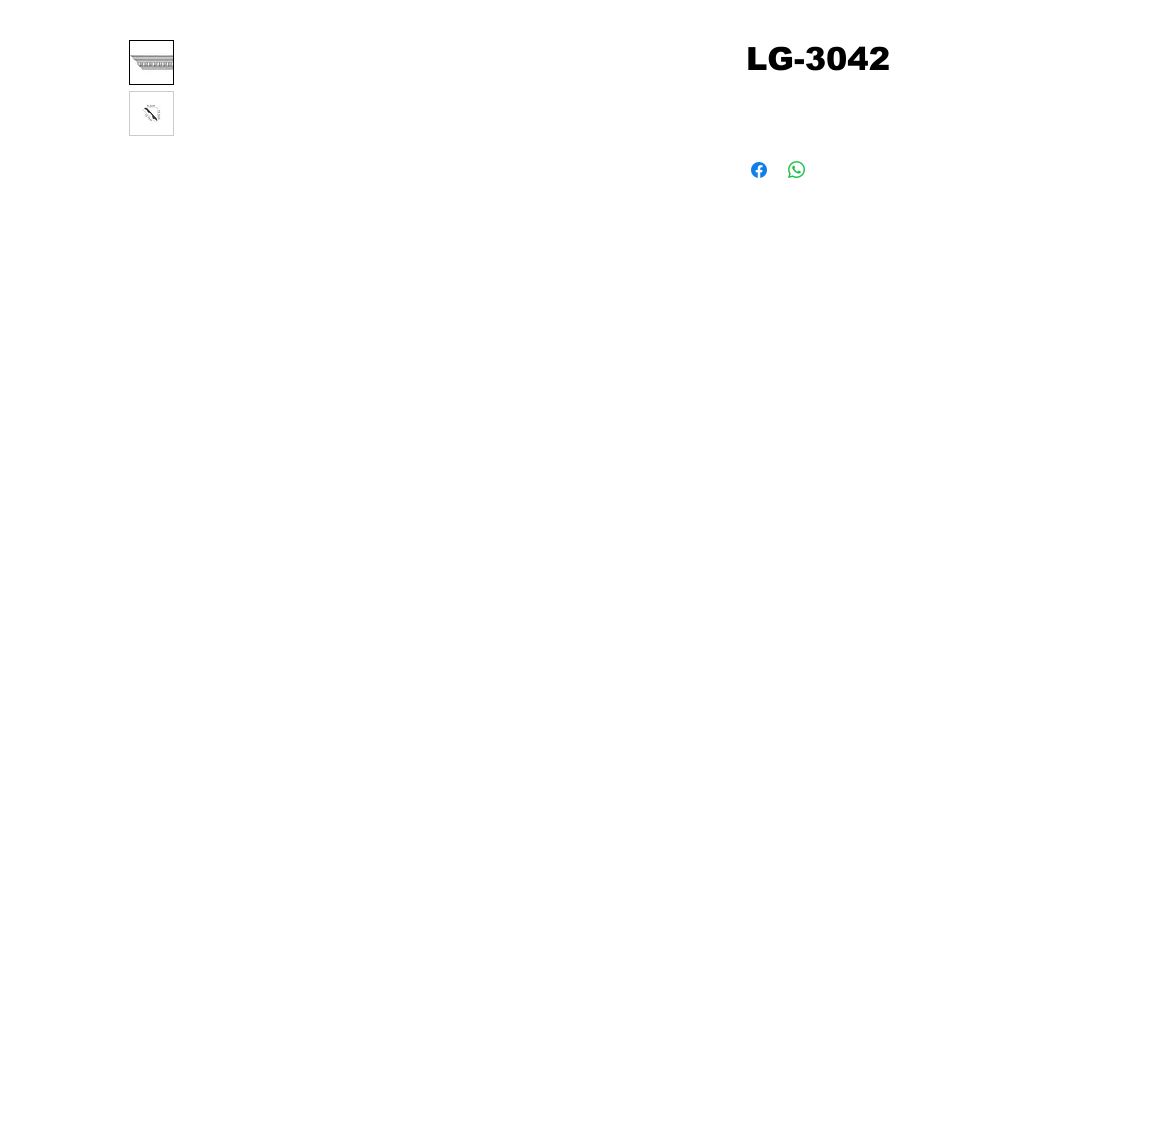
import math
import cairo

surface = cairo.ImageSurface(cairo.FORMAT_RGB24, 1151, 1129)
cr = cairo.Context(surface)
options = cairo.FontOptions()
options.set_hint_metrics(cairo.HINT_METRICS_OFF)
options.set_hint_style(cairo.HINT_STYLE_NONE)
cr.set_font_options(options)
cr.set_miter_limit(4)


def rgb(code):
    cr.set_source_rgb(*(v / 255 for v in bytes.fromhex(code[-6:])))


def image(path, x, y, w, h):
    cr.save()
    cr.set_source_surface(cairo.ImageSurface.create_from_png(path), x, y)
    cr.rectangle(x, y, w, h)
    cr.fill()
    cr.restore()


rgb("#ffffff")
cr.paint()
cr.rectangle(129.5, 40.5, 44, 44)
rgb("#000000")
cr.set_line_width(1)
cr.stroke()
image("img/1.png", 130, 41, 43, 43)
rgb("#cccccc")
cr.rectangle(129, 91, 45, 45)
cr.fill()
image("img/2.png", 130, 92, 43, 43)
image("img/3.png", 751, 162, 16, 16)
image("img/4.png", 788, 161, 17, 17)
cr.select_font_face("arial Black")
cr.set_font_size(32)
rgb("#000000")
cr.move_to(746, 70)
cr.show_text("LG-3042")
surface.write_to_png("page.png")
